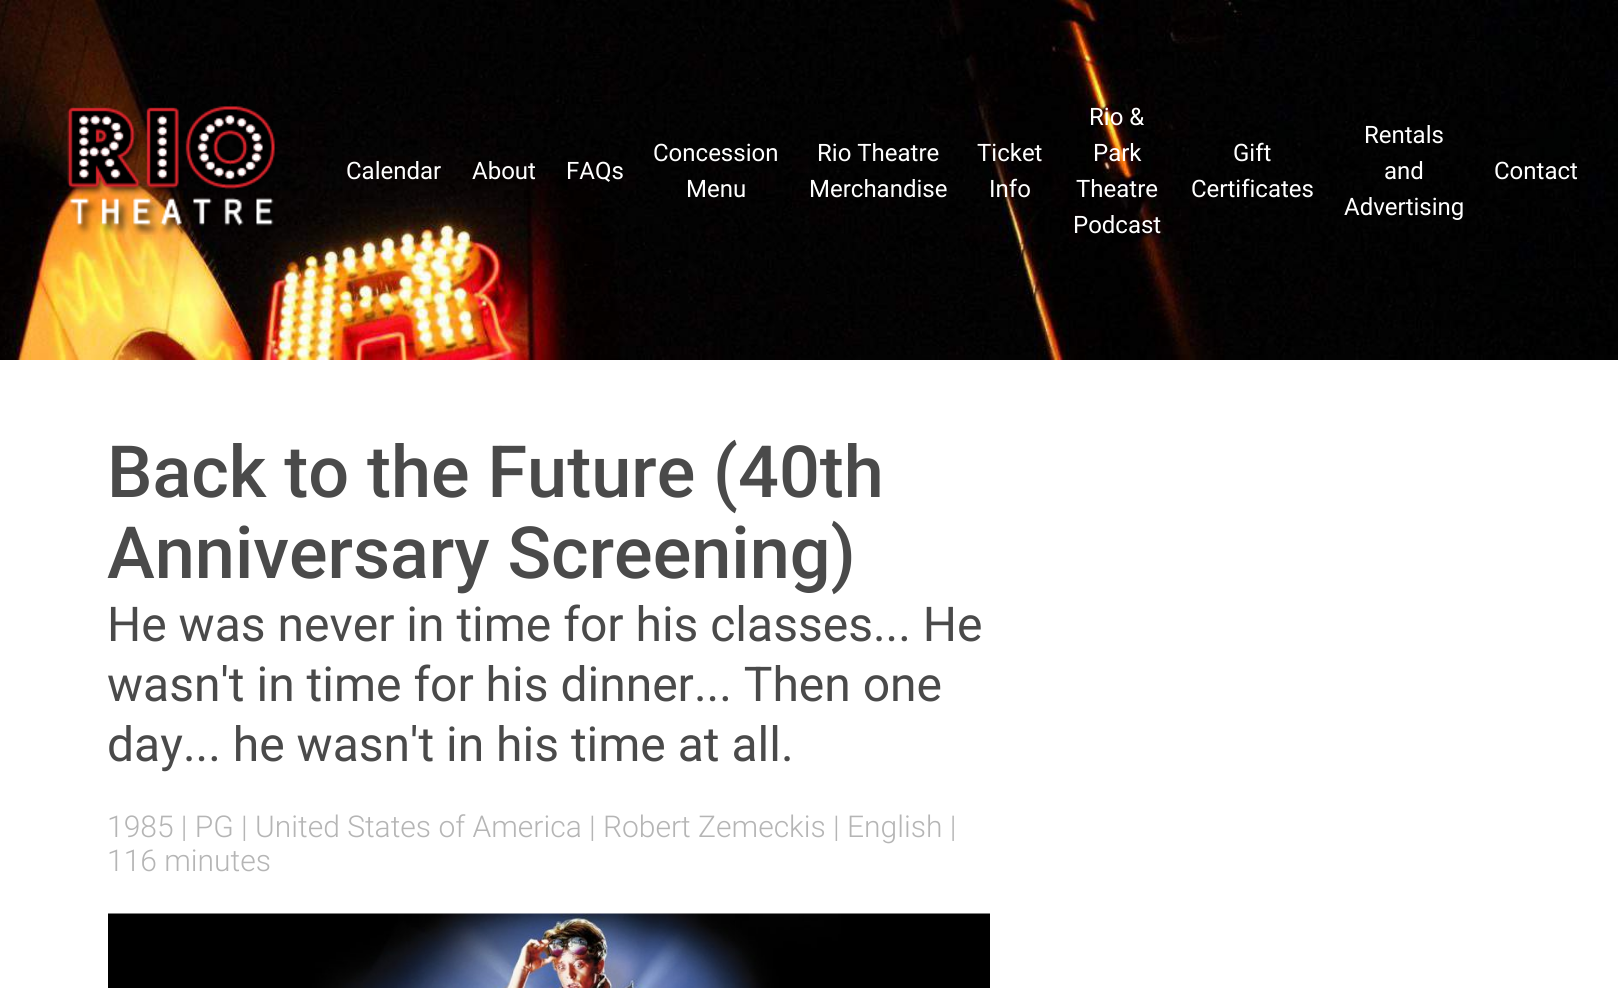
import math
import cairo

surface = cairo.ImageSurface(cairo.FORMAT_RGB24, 1618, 988)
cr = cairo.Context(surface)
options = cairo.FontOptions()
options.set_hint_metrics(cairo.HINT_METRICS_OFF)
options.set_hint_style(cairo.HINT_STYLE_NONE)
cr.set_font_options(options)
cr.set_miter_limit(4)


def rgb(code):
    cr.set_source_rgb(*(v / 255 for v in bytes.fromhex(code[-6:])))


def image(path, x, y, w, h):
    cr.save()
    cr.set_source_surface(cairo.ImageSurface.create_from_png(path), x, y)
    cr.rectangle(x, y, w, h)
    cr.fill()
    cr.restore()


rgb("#ffffff")
cr.paint()
image("img/1.png", 0, 0, 1618, 360)
image("img/2.png", 67, 106, 208, 129)
image("img/3.png", 108, 913, 882, 75)
cr.select_font_face("Roboto")
cr.set_font_size(24)
rgb("#ffffff")
for x, y, s in [
    (346, 179, "Calendar"),
    (472, 179, "About"),
    (566, 179, "FAQs"),
    (653, 161, "Concession"),
    (686, 197, "Menu"),
    (817, 161, "Rio Theatre"),
    (809, 197, "Merchandise"),
    (977, 161, "Ticket"),
    (989, 197, "Info"),
    (1089, 125, "Rio &"),
    (1093, 161, "Park"),
    (1076, 197, "Theatre"),
    (1073, 233, "Podcast"),
    (1233, 161, "Gift"),
    (1191, 197, "Certificates"),
    (1364, 143, "Rentals"),
    (1384, 179, "and"),
    (1344, 215, "Advertising"),
    (1494, 179, "Contact"),
]:
    cr.move_to(x, y)
    cr.show_text(s)
cr.select_font_face("Roboto Medium")
cr.set_font_size(72)
rgb("#4a4a4a")
cr.move_to(107, 497)
cr.show_text("Back to the Future (40th")
cr.move_to(107, 578)
cr.show_text("Anniversary Screening)")
cr.select_font_face("Roboto")
cr.set_font_size(48)
for x, y, s in [
    (107, 641, "He was never in time for his classes... He"),
    (107, 701, "wasn't in time for his dinner... Then one"),
    (107, 761, "day... he wasn't in his time at all."),
]:
    cr.move_to(x, y)
    cr.show_text(s)
cr.select_font_face("Roboto Light")
cr.set_font_size(30)
rgb("#b5b5b5")
cr.move_to(107, 837)
cr.show_text("1985 | PG | United States of America | Robert Zemeckis | English |")
cr.move_to(107, 871)
cr.show_text("116 minutes")
surface.write_to_png("page.png")
